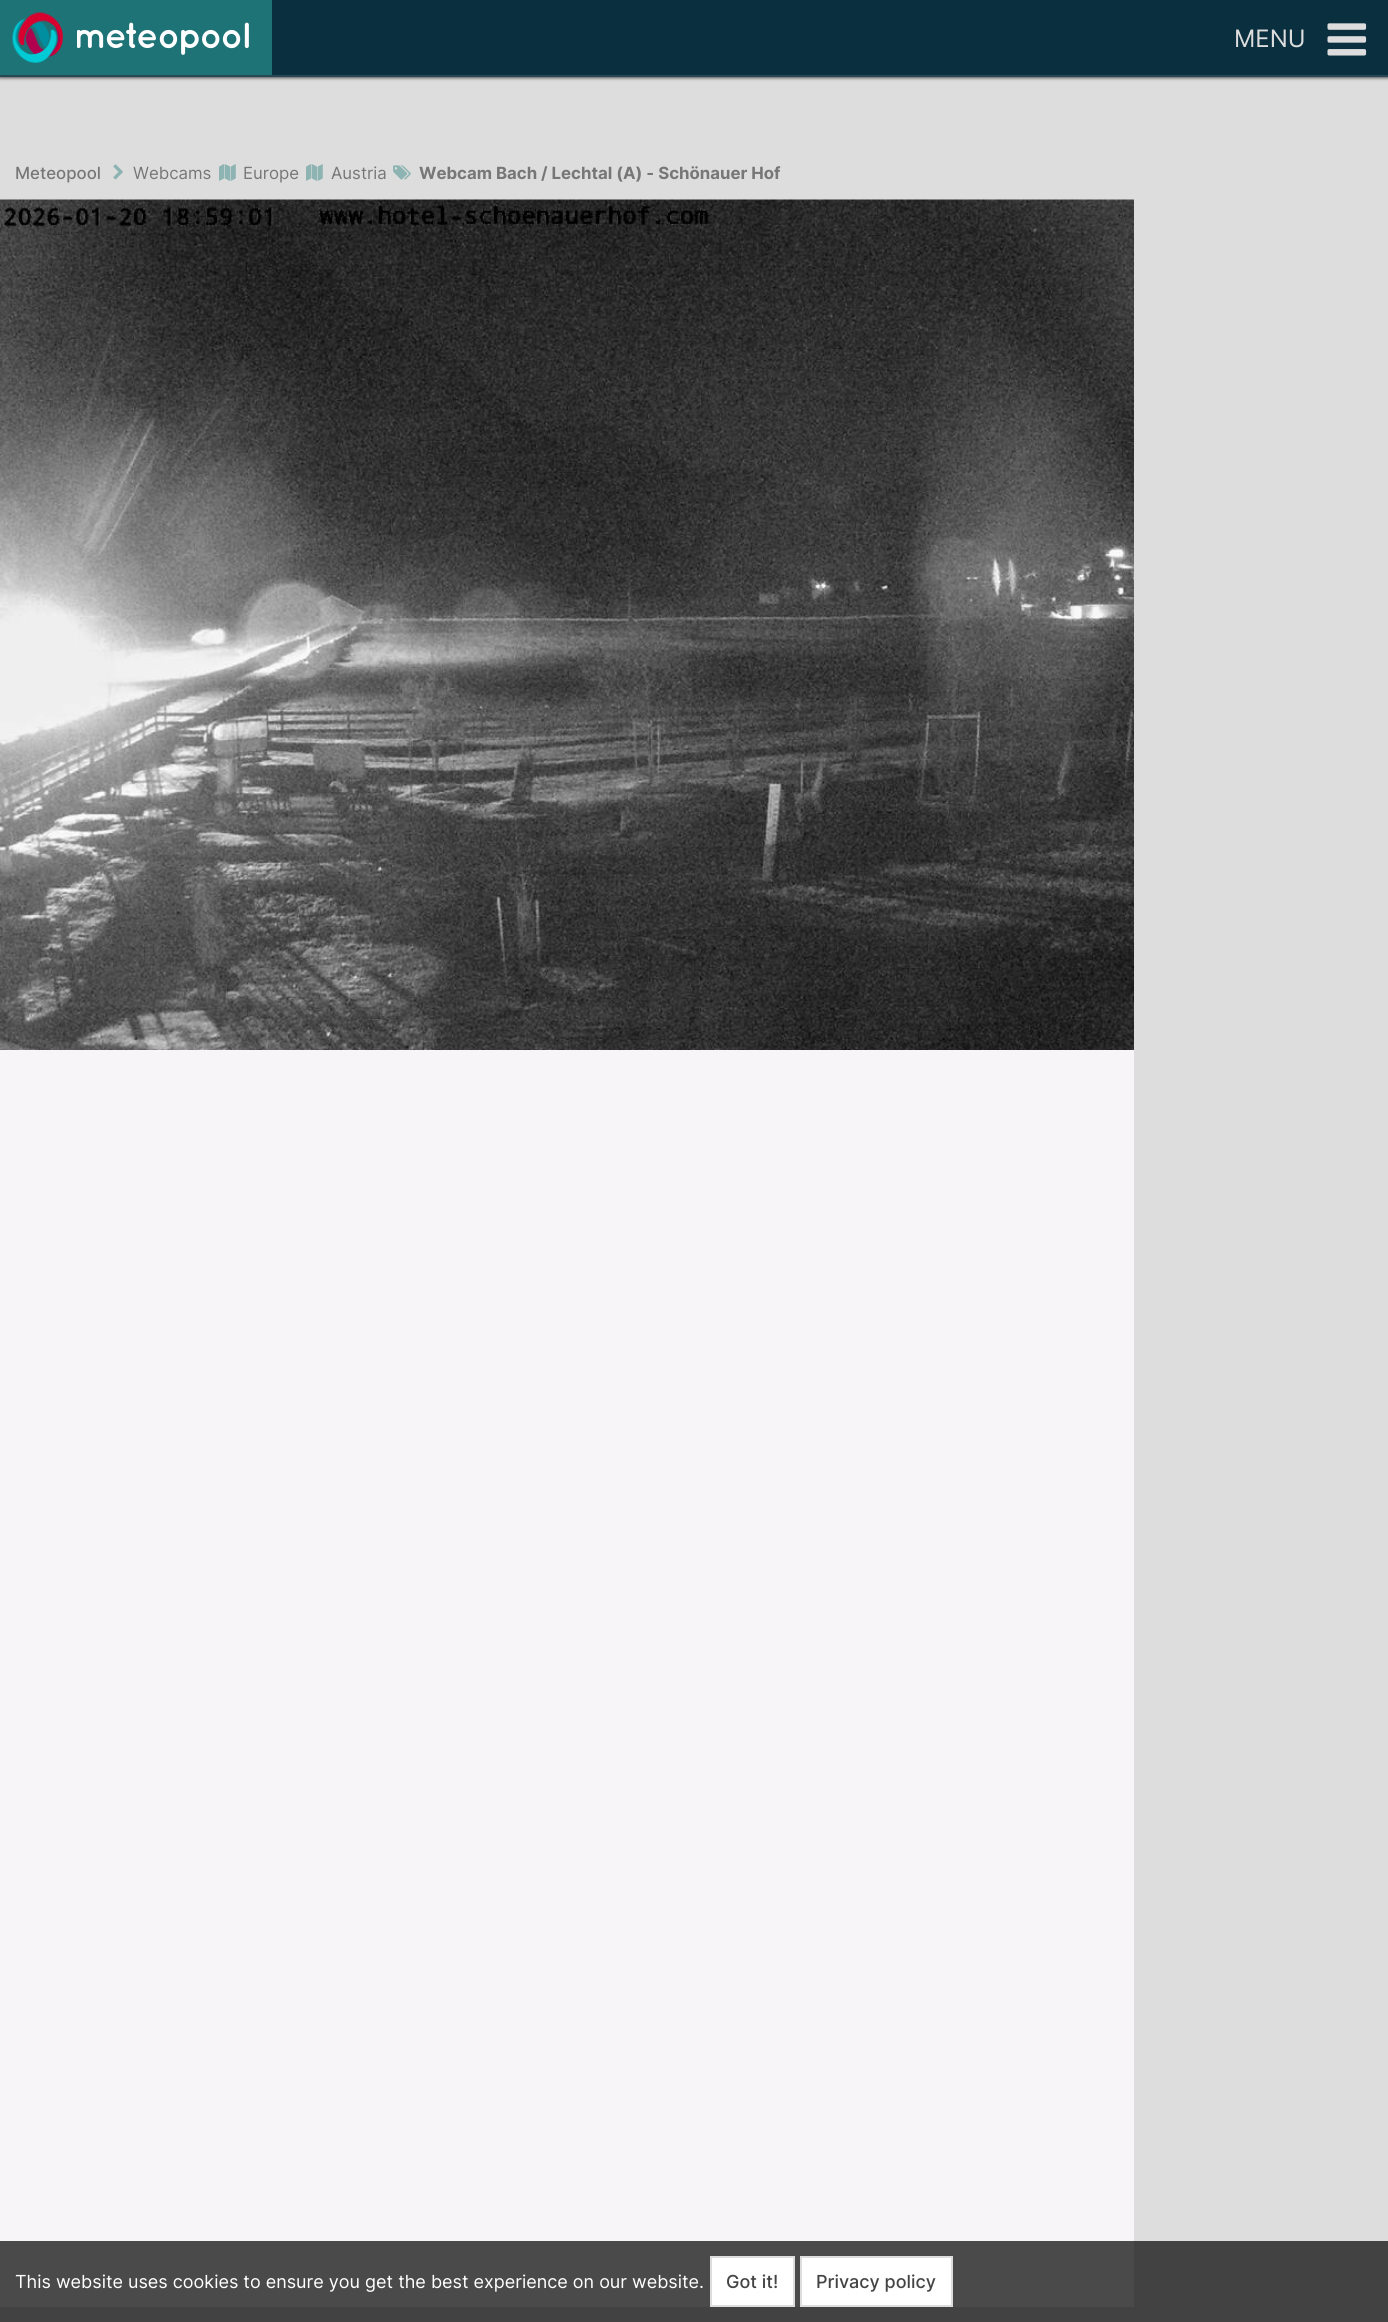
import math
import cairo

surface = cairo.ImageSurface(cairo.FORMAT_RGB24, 1388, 2322)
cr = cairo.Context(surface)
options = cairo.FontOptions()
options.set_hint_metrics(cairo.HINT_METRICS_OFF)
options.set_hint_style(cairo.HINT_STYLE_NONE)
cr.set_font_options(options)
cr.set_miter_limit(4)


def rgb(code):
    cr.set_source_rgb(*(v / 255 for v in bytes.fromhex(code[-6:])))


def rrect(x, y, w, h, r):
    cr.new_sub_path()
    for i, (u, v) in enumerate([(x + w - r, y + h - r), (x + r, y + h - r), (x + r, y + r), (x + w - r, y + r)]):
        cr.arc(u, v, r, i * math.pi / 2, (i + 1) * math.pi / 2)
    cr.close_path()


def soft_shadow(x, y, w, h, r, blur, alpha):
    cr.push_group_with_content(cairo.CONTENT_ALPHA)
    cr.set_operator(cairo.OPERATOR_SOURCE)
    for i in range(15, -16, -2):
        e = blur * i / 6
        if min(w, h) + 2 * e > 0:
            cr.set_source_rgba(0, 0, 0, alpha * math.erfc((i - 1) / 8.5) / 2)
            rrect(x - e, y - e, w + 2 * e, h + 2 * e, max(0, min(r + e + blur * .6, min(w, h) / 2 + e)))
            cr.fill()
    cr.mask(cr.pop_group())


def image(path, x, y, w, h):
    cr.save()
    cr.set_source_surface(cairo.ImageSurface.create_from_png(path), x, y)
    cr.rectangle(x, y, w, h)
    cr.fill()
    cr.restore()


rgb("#dddddd")
cr.paint()
rgb("#424242")
cr.rectangle(0, 2241, 1388, 81)
cr.fill()
rgb("#000000")
soft_shadow(0, 0, 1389, 77, 0, 2, 1)
rgb("#888888")
soft_shadow(0, 75, 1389, 2, 0, 1.5, 1)
for x, y, w, h, color in [
    (272, 0, 1116, 75, "#0a2f3f"),
    (0, 75, 1388, 2, "#284755"),
    (0, 0, 272, 75, "#1e7377"),
]:
    rgb(color)
    cr.rectangle(x, y, w, h)
    cr.fill()
image("img/1.png", 12, 12, 51, 51)
image("img/2.png", 77, 22, 172, 33)
image("img/3.png", 1327, 23, 40, 33)
image("img/4.png", 113, 164, 10, 16)
image("img/5.png", 219, 164, 17, 17)
image("img/5.png", 306, 164, 17, 17)
image("img/6.png", 393, 165, 18, 15)
rgb("#f7f5f7")
cr.rectangle(0, 1050, 1134, 1191)
cr.fill()
rgb("#4a4a4a")
cr.rectangle(0, 2241, 1134, 66)
cr.fill()
image("img/7.png", 0, 199, 1134, 851)
rgb("#ffffff")
cr.rectangle(711, 2257, 83, 49)
cr.fill_preserve()
rgb("#dddddd")
cr.stroke()
rgb("#ffffff")
cr.rectangle(801, 2257, 151, 49)
cr.fill_preserve()
rgb("#dddddd")
cr.stroke()
cr.select_font_face("Inter")
cr.set_font_size(24)
cr.move_to(1234, 47)
cr.show_text("MENU")
cr.select_font_face("Inter Medium")
cr.set_font_size(16.8)
rgb("#777777")
cr.move_to(15, 179)
cr.show_text("Meteopool")
cr.select_font_face("Inter")
for x, y, s in [
    (133, 179, "Webcams"),
    (243, 179, "Europe"),
    (331, 179, "Austria"),
]:
    cr.move_to(x, y)
    cr.show_text(s)
cr.select_font_face("Inter", cairo.FONT_SLANT_NORMAL, cairo.FONT_WEIGHT_BOLD)
cr.move_to(419, 179)
cr.show_text("Webcam Bach / Lechtal (A) - Schönauer Hof")
cr.select_font_face("Inter")
cr.set_font_size(18)
rgb("#ffffff")
cr.move_to(15, 2288)
cr.show_text("This website uses cookies to ensure you get the best experience on our website.")
cr.select_font_face("Inter Medium")
rgb("#444444")
cr.move_to(726, 2288)
cr.show_text("Got it!")
cr.move_to(816, 2288)
cr.show_text("Privacy policy")
surface.write_to_png("page.png")
